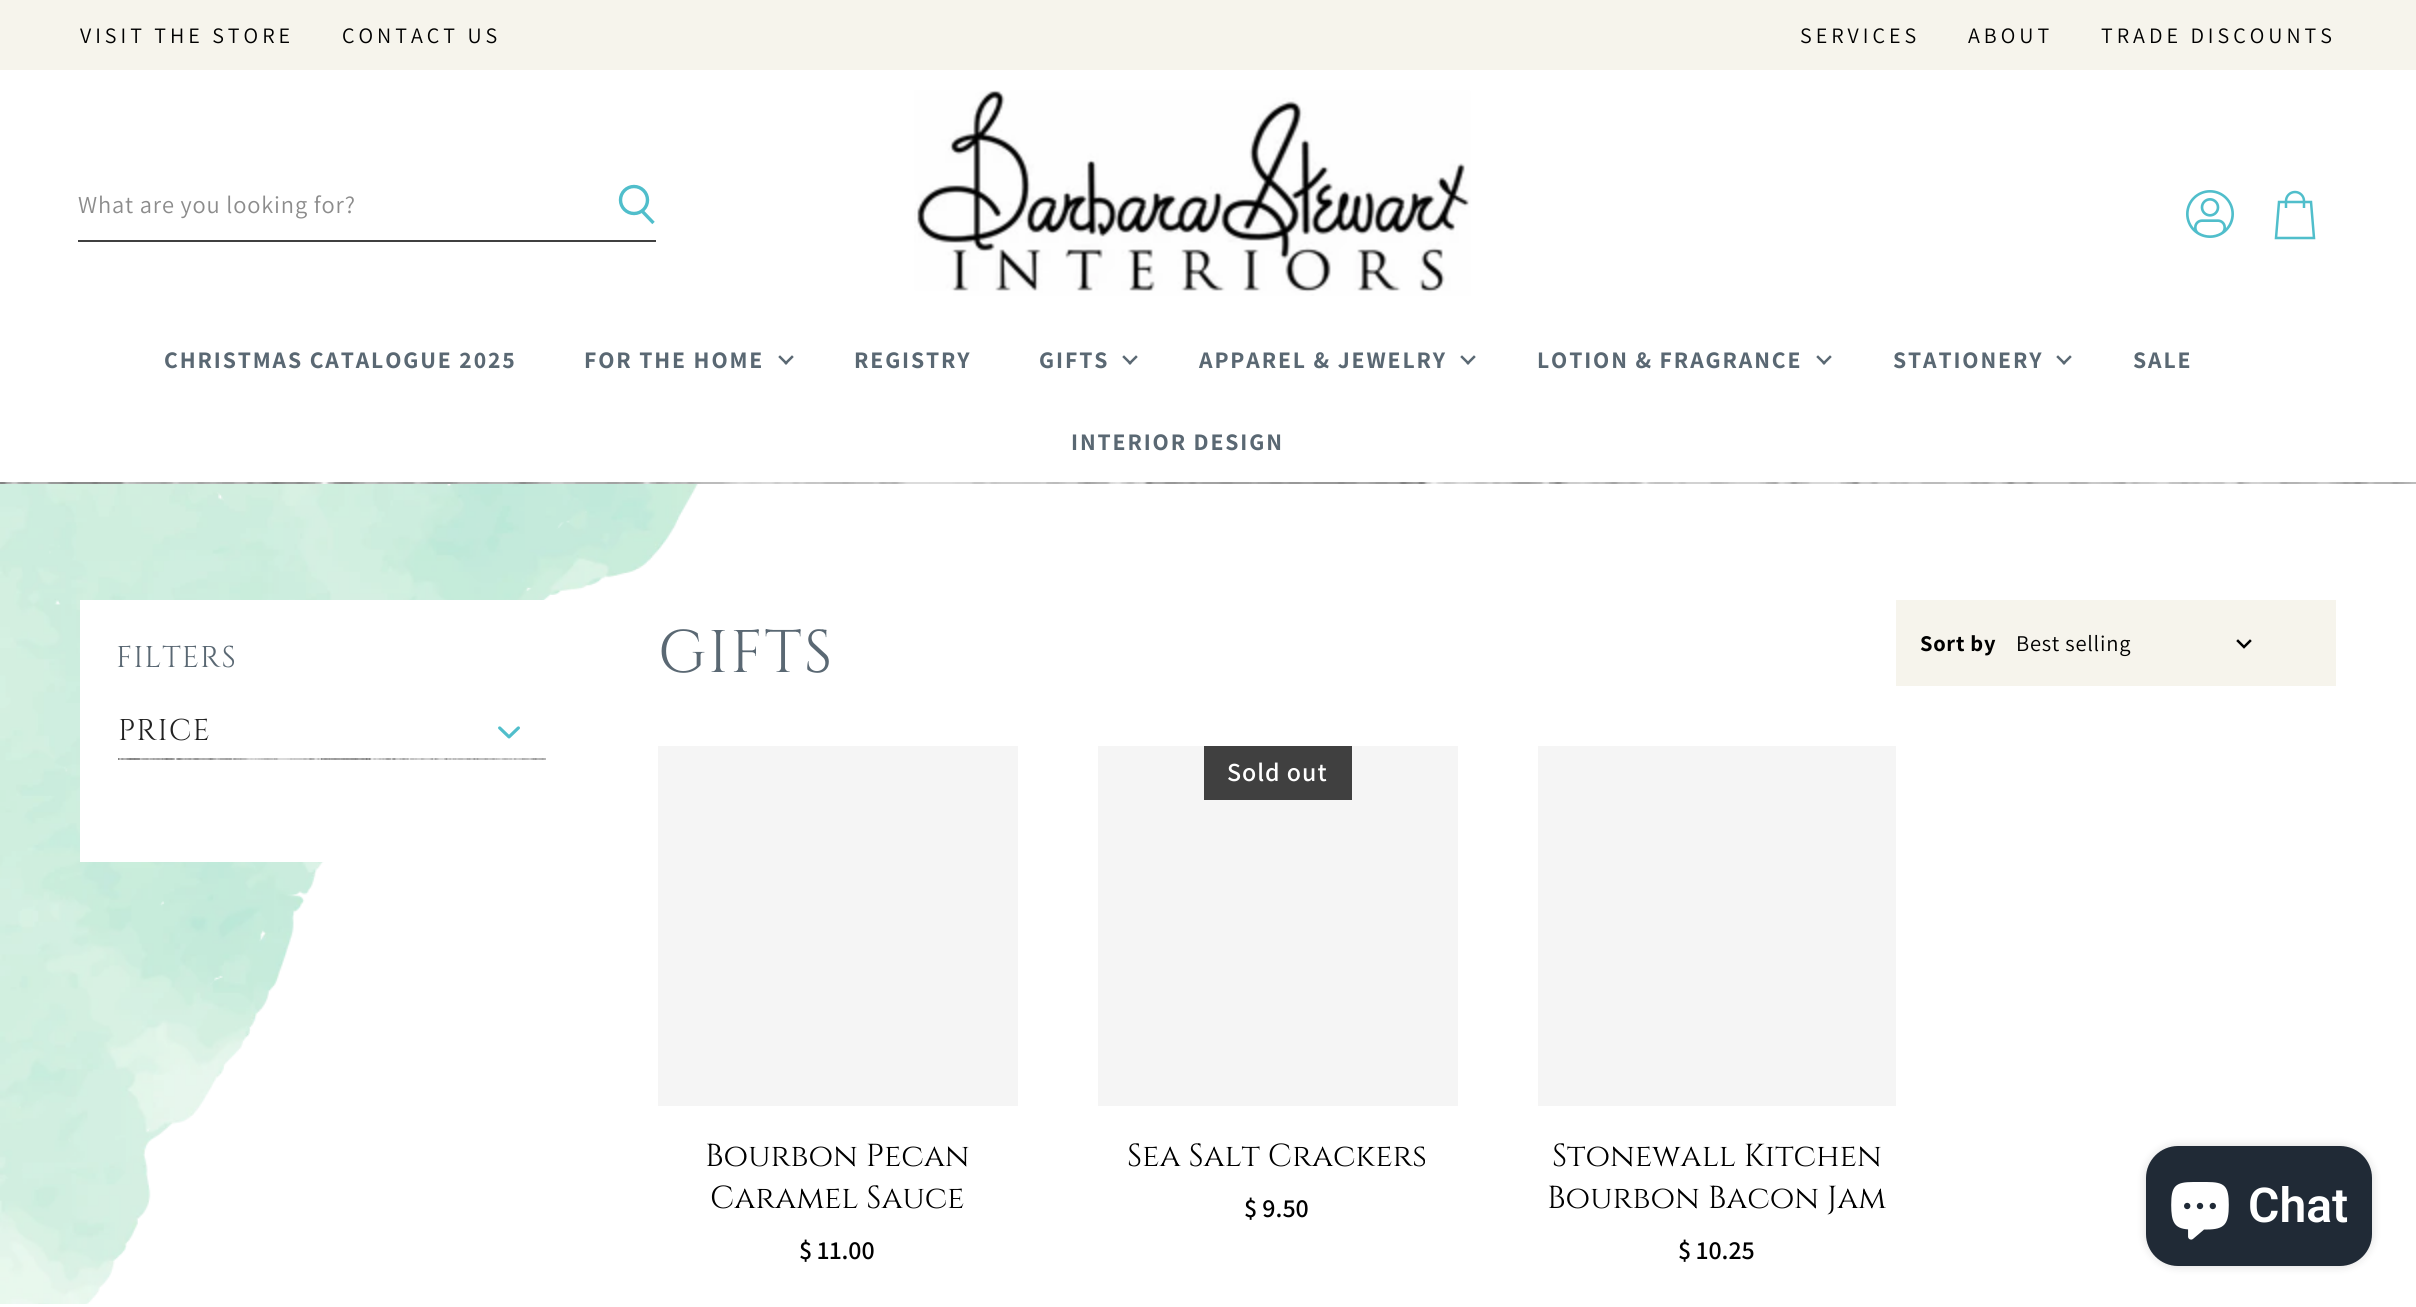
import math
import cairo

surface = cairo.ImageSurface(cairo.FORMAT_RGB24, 2416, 1307)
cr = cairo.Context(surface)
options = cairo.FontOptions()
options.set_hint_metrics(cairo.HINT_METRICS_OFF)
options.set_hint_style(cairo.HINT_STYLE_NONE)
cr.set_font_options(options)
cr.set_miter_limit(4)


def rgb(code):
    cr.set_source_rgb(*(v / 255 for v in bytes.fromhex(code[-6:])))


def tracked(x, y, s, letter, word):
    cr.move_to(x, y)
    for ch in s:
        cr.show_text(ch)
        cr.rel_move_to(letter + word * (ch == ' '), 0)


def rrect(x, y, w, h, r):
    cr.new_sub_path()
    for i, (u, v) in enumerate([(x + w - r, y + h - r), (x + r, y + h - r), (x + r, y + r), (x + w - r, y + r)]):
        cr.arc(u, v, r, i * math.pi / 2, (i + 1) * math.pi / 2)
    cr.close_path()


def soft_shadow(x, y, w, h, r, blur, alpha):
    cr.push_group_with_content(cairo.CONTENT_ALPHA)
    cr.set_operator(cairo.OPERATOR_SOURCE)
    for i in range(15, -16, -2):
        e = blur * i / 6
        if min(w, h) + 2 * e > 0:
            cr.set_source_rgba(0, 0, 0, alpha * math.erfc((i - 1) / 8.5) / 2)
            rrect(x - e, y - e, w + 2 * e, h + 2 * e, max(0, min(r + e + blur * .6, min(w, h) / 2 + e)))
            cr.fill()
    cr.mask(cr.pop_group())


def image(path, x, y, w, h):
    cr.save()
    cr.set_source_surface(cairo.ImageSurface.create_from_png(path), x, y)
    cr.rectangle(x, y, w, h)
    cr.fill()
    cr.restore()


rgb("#ffffff")
cr.paint()
rgb("#f6f4ec")
cr.rectangle(0, 0, 2416, 70)
cr.fill()
image("img/1.png", 0, 482, 2416, 2)
rgb("#404040")
cr.rectangle(78, 240, 578, 2)
cr.fill()
cr.new_path()
cr.move_to(653.5, 223)
cr.line_to(642, 211)
rgb("#50becb")
cr.set_line_width(3.4)
cr.stroke()
cr.arc(634, 200, 13.5, 0, 2 * math.pi)
cr.stroke()
image("img/2.png", 914, 90, 557, 206)
image("img/3.png", 2186, 190, 48, 48)
cr.new_path()
cr.move_to(2314, 238)
cr.line_to(2276, 238)
cr.line_to(2279, 202)
cr.line_to(2311, 202)
cr.close_path()
cr.move_to(2304, 208)
cr.line_to(2304, 201)
cr.curve_to(2304, 196, 2300, 192, 2295, 192)
cr.curve_to(2290, 192, 2286, 196, 2286, 201)
cr.line_to(2286, 208)
cr.set_line_width(2.5)
cr.stroke()
image("img/4.png", 778, 355, 16, 10)
image("img/4.png", 1122, 355, 16, 10)
image("img/4.png", 1460, 355, 16, 10)
image("img/4.png", 1816, 355, 16, 10)
image("img/4.png", 2056, 355, 16, 10)
image("img/5.png", 0, 484, 698, 820)
rgb("#ffffff")
cr.rectangle(80, 600, 465, 262)
cr.fill()
image("img/6.png", 118, 758, 428, 2)
image("img/7.png", 498, 726, 22, 13)
rgb("#f6f4ec")
cr.rectangle(1896, 600, 440, 86)
cr.fill()
cr.new_path()
cr.move_to(2244, 647)
cr.line_to(2250, 641)
cr.move_to(2244, 647)
cr.line_to(2238, 641)
rgb("#000000")
cr.set_line_cap(cairo.LINE_CAP_SQUARE)
cr.stroke()
for x, y, w, h, color in [
    (658, 746, 360, 360, "#f5f5f5"),
    (1098, 746, 360, 360, "#f5f5f5"),
    (1204, 746, 148, 54, "#404040"),
    (1538, 746, 358, 360, "#f5f5f5"),
]:
    rgb(color)
    cr.rectangle(x, y, w, h)
    cr.fill()
rgb("#000000")
soft_shadow(2146, 1146, 226, 120, 32, 5, 0.15)
rgb("#202a36")
rrect(2146, 1146, 226, 120, 32)
cr.fill()
image("img/8.png", 2171, 1182, 58, 58)
cr.select_font_face("Assistant")
cr.set_font_size(22)
rgb("#000000")
for x, y, s in [
    (80, 43, "VISIT THE STORE"),
    (342, 43, "CONTACT US"),
    (1800, 43, "SERVICES"),
    (1968, 43, "ABOUT"),
    (2101, 43, "TRADE DISCOUNTS"),
]:
    tracked(x, y, s, 4, 0)
cr.set_font_size(24.4)
rgb("#8c8c8c")
tracked(78, 213, "What are you looking for?", 0.85, 0)
cr.select_font_face("Assistant", cairo.FONT_SLANT_NORMAL, cairo.FONT_WEIGHT_BOLD)
cr.set_font_size(23.75)
rgb("#5a6873")
for x, y, s in [
    (164, 368, "CHRISTMAS CATALOGUE 2025"),
    (584, 368, "FOR THE HOME"),
    (854, 368, "REGISTRY"),
    (1039, 368, "GIFTS"),
    (1199, 368, "APPAREL & JEWELRY"),
    (1537, 368, "LOTION & FRAGRANCE"),
    (1893, 368, "STATIONERY"),
    (2133, 368, "SALE"),
    (1071, 450, "INTERIOR DESIGN"),
]:
    tracked(x, y, s, 1.9, 0)
cr.select_font_face("Cinzel")
cr.set_font_size(30)
tracked(116, 667, "FILTERS", 1, 0)
rgb("#222222")
tracked(118, 740, "PRICE", 1, 0)
cr.set_font_size(60)
rgb("#5a6873")
tracked(658, 672, "GIFTS", 2, 0)
cr.select_font_face("Assistant", cairo.FONT_SLANT_NORMAL, cairo.FONT_WEIGHT_BOLD)
cr.set_font_size(22.5)
rgb("#000000")
tracked(1920, 651, "Sort by", 0.75, 0)
cr.select_font_face("Assistant")
tracked(2016, 651, "Best selling", 0.75, 0)
cr.select_font_face("Cinzel")
cr.set_font_size(31.75)
cr.move_to(705, 1166)
cr.show_text("Bourbon Pecan")
cr.move_to(710, 1208)
cr.show_text("Caramel Sauce")
cr.select_font_face("Assistant SemiBold")
cr.set_font_size(26)
cr.move_to(799, 1259)
cr.show_text("$ 11.00")
rgb("#ffffff")
tracked(1227, 781, "Sold out", 1, 0)
cr.select_font_face("Cinzel")
cr.set_font_size(31.75)
rgb("#000000")
cr.move_to(1127, 1166)
cr.show_text("Sea Salt Crackers")
cr.select_font_face("Assistant SemiBold")
cr.set_font_size(26)
cr.move_to(1244, 1217)
cr.show_text("$ 9.50")
cr.select_font_face("Cinzel")
cr.set_font_size(31.75)
cr.move_to(1552, 1166)
cr.show_text("Stonewall Kitchen")
cr.move_to(1547, 1208)
cr.show_text("Bourbon Bacon Jam")
cr.select_font_face("Assistant SemiBold")
cr.set_font_size(26)
cr.move_to(1678, 1259)
cr.show_text("$ 10.25")
cr.select_font_face("Roboto SemiBold")
cr.set_font_size(48)
rgb("#ffffff")
cr.move_to(2248, 1222)
cr.show_text("Chat")
surface.write_to_png("page.png")
